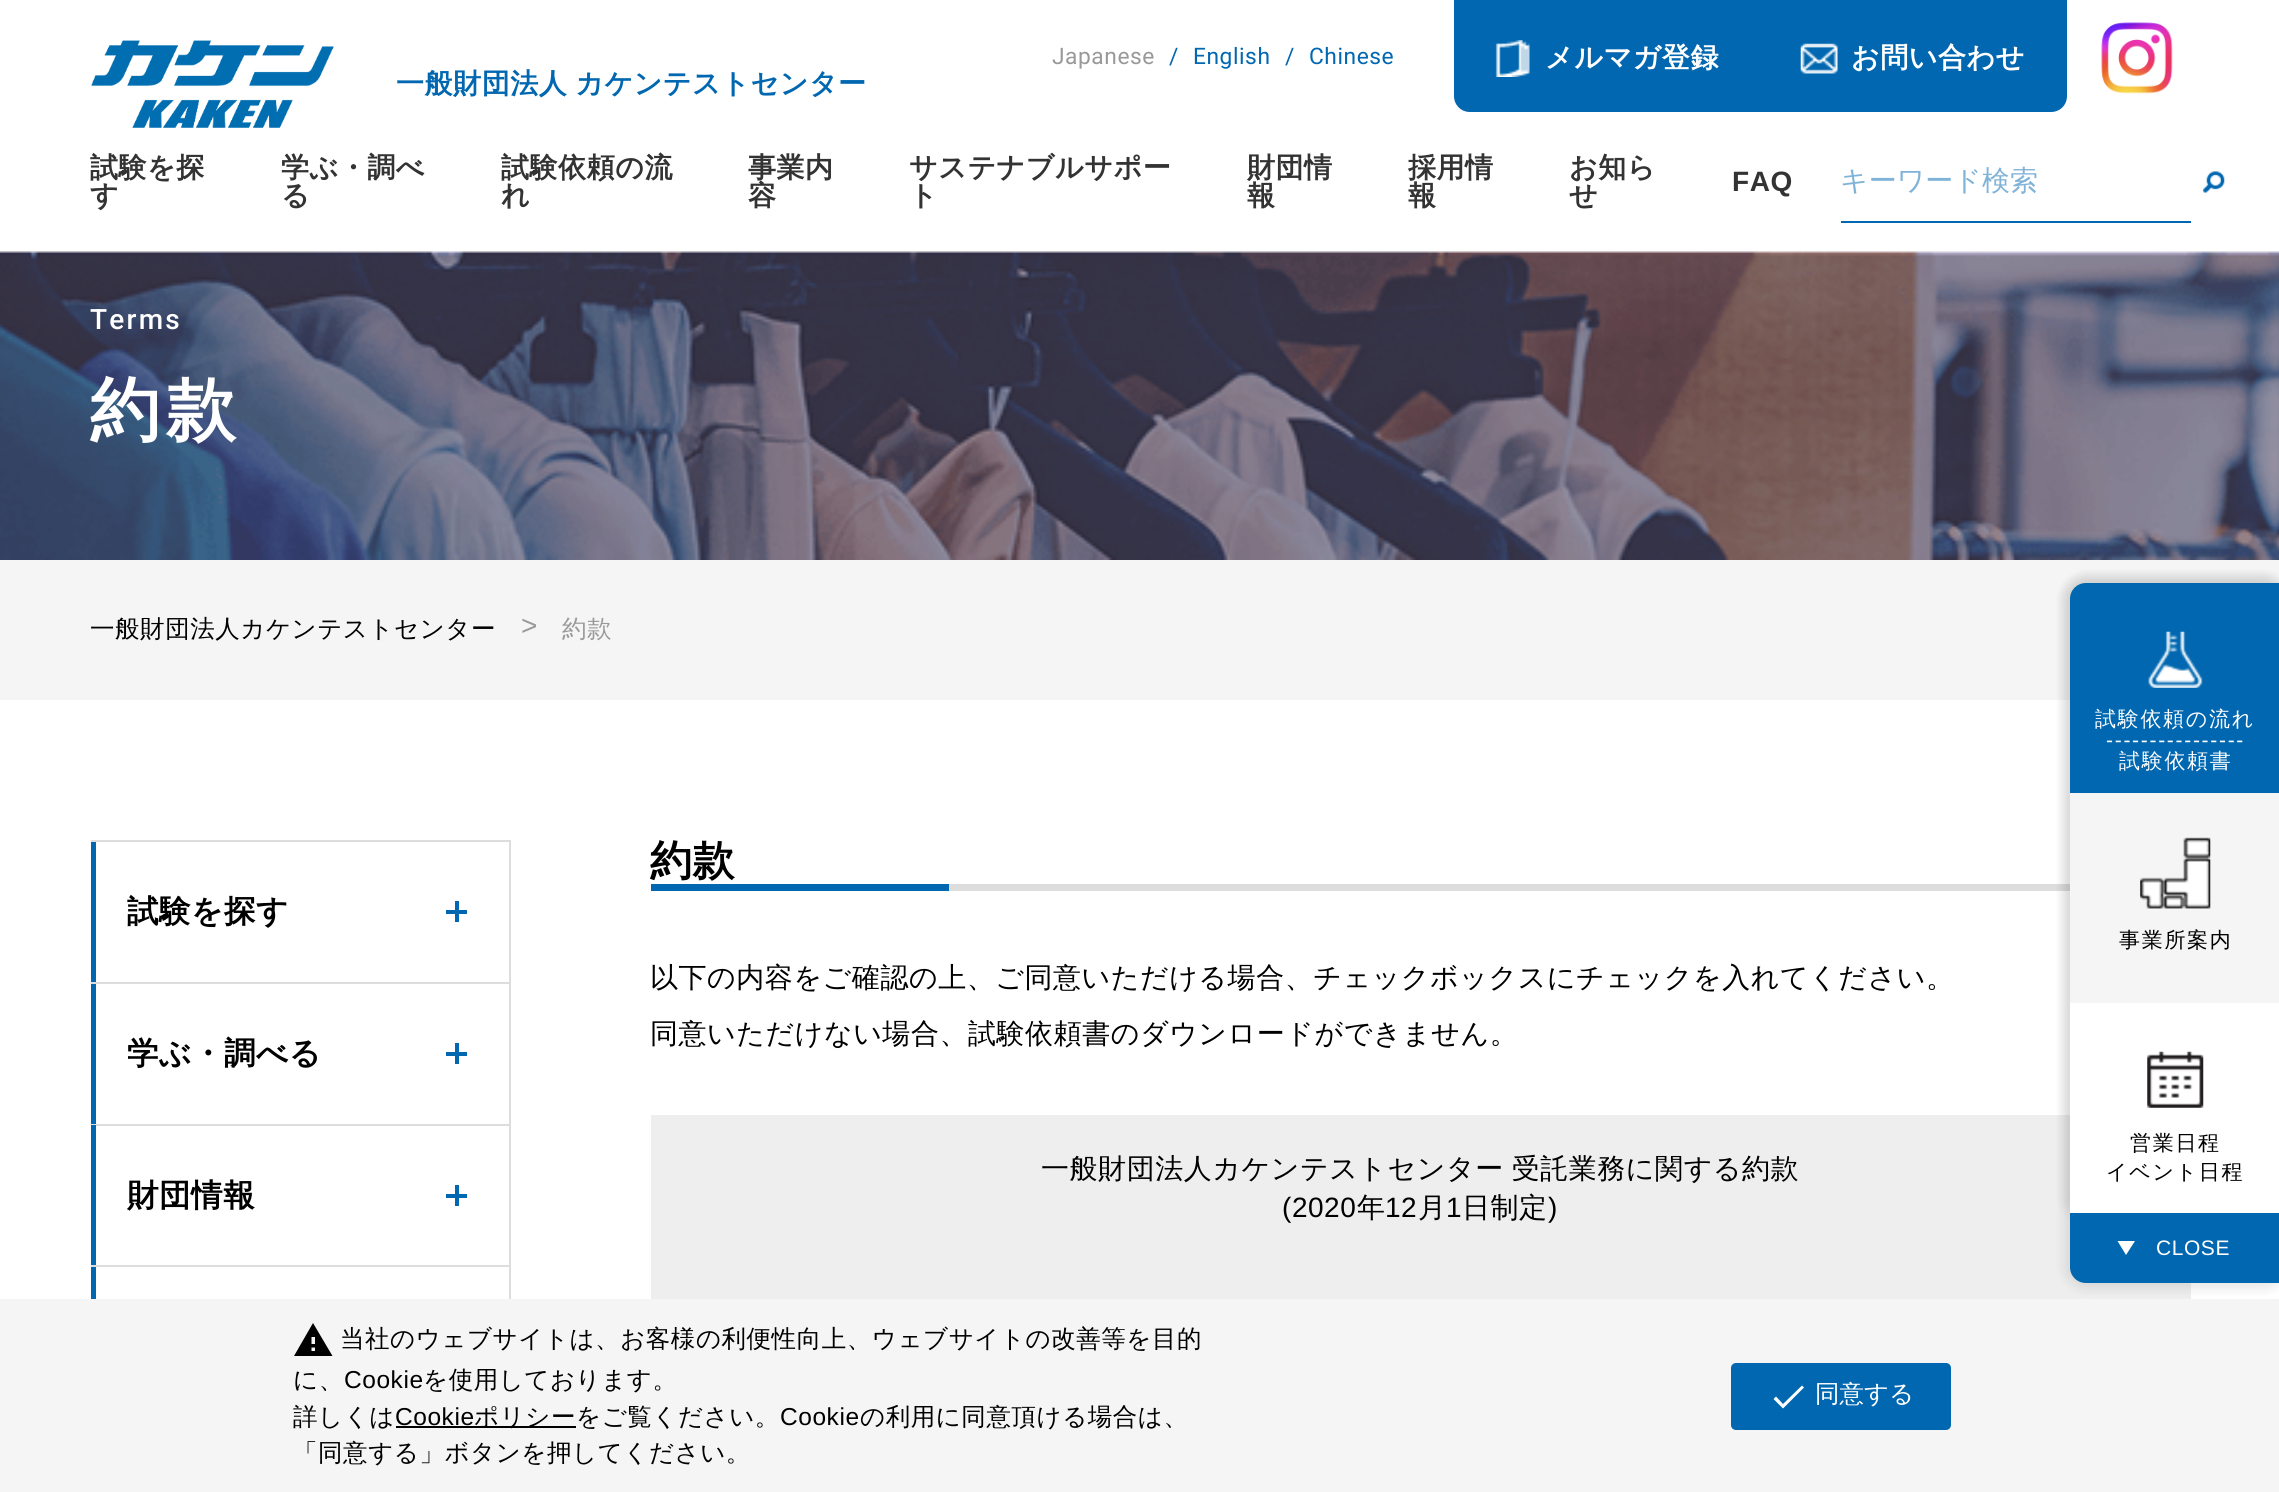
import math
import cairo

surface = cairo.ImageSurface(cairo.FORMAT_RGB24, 2279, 1492)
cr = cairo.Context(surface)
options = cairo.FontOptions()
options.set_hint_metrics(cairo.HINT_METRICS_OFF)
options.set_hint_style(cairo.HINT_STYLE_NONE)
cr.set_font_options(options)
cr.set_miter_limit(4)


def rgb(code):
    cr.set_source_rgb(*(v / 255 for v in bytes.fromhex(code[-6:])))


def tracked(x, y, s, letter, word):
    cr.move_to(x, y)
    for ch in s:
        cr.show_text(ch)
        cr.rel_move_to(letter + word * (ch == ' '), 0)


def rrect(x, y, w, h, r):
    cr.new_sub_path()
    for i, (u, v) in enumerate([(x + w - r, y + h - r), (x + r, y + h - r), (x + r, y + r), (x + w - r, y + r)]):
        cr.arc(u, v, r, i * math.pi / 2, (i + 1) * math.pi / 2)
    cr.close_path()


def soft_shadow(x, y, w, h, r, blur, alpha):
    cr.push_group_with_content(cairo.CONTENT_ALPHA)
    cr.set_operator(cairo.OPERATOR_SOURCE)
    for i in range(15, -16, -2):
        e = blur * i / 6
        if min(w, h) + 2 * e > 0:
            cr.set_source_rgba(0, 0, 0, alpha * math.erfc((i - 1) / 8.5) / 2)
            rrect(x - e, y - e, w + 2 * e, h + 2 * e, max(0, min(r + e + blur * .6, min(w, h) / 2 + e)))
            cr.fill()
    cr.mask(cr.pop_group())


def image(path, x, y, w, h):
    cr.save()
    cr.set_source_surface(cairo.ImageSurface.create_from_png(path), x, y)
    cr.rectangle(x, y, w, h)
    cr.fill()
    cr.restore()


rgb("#ffffff")
cr.paint()
image("img/1.png", 0, 0, 2279, 560)
rgb("#0067b0")
cr.rectangle(1454, 0, 613, 4)
cr.fill()
cr.new_path()
cr.move_to(1454, 4)
cr.line_to(1761, 4)
cr.line_to(1761, 112)
cr.line_to(1470, 112)
cr.curve_to(1461, 112, 1454, 105, 1454, 96)
cr.close_path()
cr.fill()
image("img/2.png", 1495, 40, 35, 37)
cr.new_path()
cr.move_to(1761, 4)
cr.line_to(2067, 4)
cr.line_to(2067, 96)
cr.curve_to(2067, 105, 2060, 112, 2051, 112)
cr.line_to(1761, 112)
cr.close_path()
cr.fill()
image("img/3.png", 1800, 43, 38, 31)
image("img/4.png", 2101, 22, 72, 72)
image("img/5.png", 91, 40, 243, 88)
cr.rectangle(1841, 221, 350, 2)
cr.fill()
image("img/6.png", 2203, 171, 22, 22)
rgb("#f5f5f5")
cr.rectangle(0, 560, 2279, 140)
cr.fill()
cr.rectangle(92, 841, 418, 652)
rgb("#dddddd")
cr.stroke()
for x, y, w, h, color in [
    (93, 982, 416, 2, "#dddddd"),
    (91, 842, 5, 140, "#0067b0"),
    (446, 910, 21, 4, "#0067b0"),
    (455, 901, 4, 21, "#0067b0"),
    (93, 1124, 416, 2, "#dddddd"),
    (91, 984, 5, 140, "#0067b0"),
    (446, 1052, 21, 4, "#0067b0"),
    (455, 1043, 4, 21, "#0067b0"),
    (93, 1265, 416, 2, "#dddddd"),
    (91, 1125, 5, 140, "#0067b0"),
    (446, 1194, 21, 4, "#0067b0"),
    (455, 1185, 4, 21, "#0067b0"),
    (91, 1267, 5, 32, "#0067b0"),
    (651, 884, 298, 7, "#0067b0"),
    (949, 884, 1121, 7, "#dddddd"),
    (651, 1115, 1540, 184, "#eeeeee"),
    (0, 1299, 2279, 193, "#f5f5f5"),
]:
    rgb(color)
    cr.rectangle(x, y, w, h)
    cr.fill()
rgb("#000000")
soft_shadow(2063, 576, 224, 714, 23, 5, 0.08)
soft_shadow(2063, 576, 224, 644, 23, 5, 0.08)
rgb("#0067b0")
cr.new_path()
cr.move_to(2086, 583)
cr.line_to(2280, 583)
cr.line_to(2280, 793)
cr.line_to(2070, 793)
cr.line_to(2070, 599)
cr.curve_to(2070, 590, 2077, 583, 2086, 583)
cr.close_path()
cr.fill()
image("img/7.png", 2148, 631, 55, 57)
rgb("#f5f5f5")
cr.rectangle(2070, 793, 209, 210)
cr.fill()
image("img/8.png", 2140, 837, 71, 72)
rgb("#ffffff")
cr.rectangle(2070, 1003, 209, 210)
cr.fill()
image("img/9.png", 2147, 1051, 57, 57)
rgb("#0067b0")
cr.new_path()
cr.move_to(2070, 1213)
cr.line_to(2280, 1213)
cr.line_to(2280, 1283)
cr.line_to(2086, 1283)
cr.curve_to(2077, 1283, 2070, 1276, 2070, 1267)
cr.close_path()
cr.fill()
rgb("#ffffff")
cr.new_path()
cr.move_to(2117.5, 1241)
cr.line_to(2135, 1241)
cr.line_to(2126, 1255)
cr.close_path()
cr.fill()
rgb("#000000")
cr.new_path()
cr.move_to(315, 1344)
cr.line_to(315, 1337)
cr.line_to(311.5, 1337)
cr.line_to(311.5, 1344)
cr.close_path()
cr.move_to(315, 1351)
cr.line_to(315, 1347.5)
cr.line_to(311.5, 1347.5)
cr.line_to(311.5, 1351)
cr.close_path()
cr.move_to(294, 1356)
cr.line_to(313, 1323)
cr.line_to(332.5, 1356)
cr.close_path()
cr.fill()
cr.rectangle(396, 1426, 180, 2)
cr.fill()
rgb("#0067b0")
rrect(1731, 1363, 220, 67, 5)
cr.fill()
rgb("#ffffff")
cr.new_path()
cr.move_to(1783, 1404)
cr.line_to(1802, 1385.5)
cr.line_to(1804, 1387.5)
cr.line_to(1783, 1408.5)
cr.line_to(1773.5, 1399)
cr.line_to(1776, 1396.5)
cr.close_path()
cr.fill()
cr.select_font_face("Roboto")
cr.set_font_size(22.75)
rgb("#999999")
tracked(1052, 64, "Japanese", 0.55, 0)
rgb("#0067b0")
for x, y, s in [
    (1169, 64, "/"),
    (1193, 64, "English"),
    (1285, 64, "/"),
    (1309, 64, "Chinese"),
]:
    tracked(x, y, s, 0.55, 0)
cr.select_font_face("WenQuanYi Zen Hei", cairo.FONT_SLANT_NORMAL, cairo.FONT_WEIGHT_BOLD)
cr.set_font_size(28)
rgb("#ffffff")
tracked(1545, 67, "メルマガ登録", 0.55, 0)
tracked(1851, 67, "お問い合わせ", 0.55, 0)
rgb("#0067b0")
tracked(396, 93, "一般財団法人 カケンテストセンター", 0.55, -1)
rgb("#333333")
for x, y, s in [
    (90, 177, "試験を探"),
    (90, 205, "す"),
    (281, 177, "学ぶ・調べ"),
    (281, 205, "る"),
    (501, 177, "試験依頼の流"),
    (501, 205, "れ"),
    (748, 177, "事業内"),
    (748, 205, "容"),
    (909, 177, "サステナブルサポー"),
    (909, 205, "ト"),
    (1247, 177, "財団情"),
    (1247, 205, "報"),
    (1408, 177, "採用情"),
    (1408, 205, "報"),
    (1569, 177, "お知ら"),
    (1569, 205, "せ"),
]:
    tracked(x, y, s, 0.55, 0)
cr.select_font_face("Liberation Sans", cairo.FONT_SLANT_NORMAL, cairo.FONT_WEIGHT_BOLD)
tracked(1732, 191, "FAQ", 0.55, 0)
cr.select_font_face("WenQuanYi Zen Hei Medium")
rgb("#80b3d8")
cr.move_to(1840, 190)
cr.show_text("キーワード検索")
cr.select_font_face("Roboto Medium")
rgb("#ffffff")
tracked(90, 329, "Terms", 2.25, 0)
cr.select_font_face("WenQuanYi Zen Hei", cairo.FONT_SLANT_NORMAL, cairo.FONT_WEIGHT_BOLD)
cr.set_font_size(70)
tracked(90, 434, "約款", 6, 0)
cr.select_font_face("WenQuanYi Zen Hei Medium")
cr.set_font_size(24.5)
rgb("#000000")
tracked(90, 637, "一般財団法人カケンテストセンター", 0.55, 0)
cr.select_font_face("Liberation Sans")
cr.set_font_size(28)
rgb("#999999")
tracked(521, 635, ">", 0.55, 0)
cr.select_font_face("WenQuanYi Zen Hei Medium")
cr.set_font_size(24.5)
tracked(562, 637, "約款", 0.55, 0)
cr.select_font_face("WenQuanYi Zen Hei", cairo.FONT_SLANT_NORMAL, cairo.FONT_WEIGHT_BOLD)
cr.set_font_size(31.5)
rgb("#000000")
for x, y, s in [
    (127, 922, "試験を探す"),
    (127, 1064, "学ぶ・調べる"),
    (127, 1206, "財団情報"),
]:
    tracked(x, y, s, 0.55, 0)
cr.set_font_size(42)
tracked(650, 875, "約款", 0.55, 0)
cr.select_font_face("WenQuanYi Zen Hei Medium")
cr.set_font_size(28)
tracked(650, 987, "以下の内容をご確認の上、ご同意いただける場合、チェックボックスにチェックを入れてください。", 0.55, 0)
tracked(650, 1043, "同意いただけない場合、試験依頼書のダウンロードができません。", 0.55, 0)
tracked(1041, 1178, "一般財団法人カケンテストセンター 受託業務に関する約款", 0.55, -1)
cr.select_font_face("Liberation Sans")
tracked(1282, 1217, "(2020", 0.55, 0)
cr.select_font_face("WenQuanYi Zen Hei Medium")
tracked(1357, 1217, "年", 0.55, 0)
cr.select_font_face("Liberation Sans")
tracked(1385, 1217, "12", 0.55, 0)
cr.select_font_face("WenQuanYi Zen Hei Medium")
tracked(1418, 1217, "月", 0.55, 0)
cr.select_font_face("Liberation Sans")
tracked(1446, 1217, "1", 0.55, 0)
cr.select_font_face("WenQuanYi Zen Hei Medium")
tracked(1462, 1217, "日制定", 0.55, 0)
cr.select_font_face("Liberation Sans")
tracked(1548, 1217, ")", 0.55, 0)
cr.select_font_face("WenQuanYi Zen Hei Medium")
cr.set_font_size(21)
rgb("#ffffff")
tracked(2095, 726, "試験依頼の流れ", 1.7, 0)
cr.select_font_face("Liberation Sans")
tracked(2106, 747, "----------------", 1.7, 0)
cr.select_font_face("WenQuanYi Zen Hei Medium")
tracked(2119, 768, "試験依頼書", 1.7, 0)
rgb("#000000")
for x, y, s in [
    (2119, 947, "事業所案内"),
    (2130, 1150, "営業日程"),
    (2106, 1179, "イベント日程"),
]:
    tracked(x, y, s, 1.7, 0)
cr.select_font_face("Liberation Sans")
rgb("#ffffff")
tracked(2156, 1255, "CLOSE", 0.55, 0)
cr.select_font_face("WenQuanYi Zen Hei Medium")
cr.set_font_size(24.5)
rgb("#000000")
tracked(340, 1347, "当社のウェブサイトは、お客様の利便性向上、ウェブサイトの改善等を目的", 0.55, 0)
tracked(293, 1388, "に、", 0.55, 0)
cr.select_font_face("Liberation Sans")
tracked(344, 1388, "Cookie", 0.55, 0)
cr.select_font_face("WenQuanYi Zen Hei Medium")
tracked(423, 1388, "を使用しております。", 0.55, 0)
tracked(293, 1425, "詳しくは", 0.55, 0)
cr.select_font_face("Liberation Sans")
tracked(395, 1425, "Cookie", 0.55, 0)
cr.select_font_face("WenQuanYi Zen Hei Medium")
tracked(474, 1425, "ポリシー", 0.55, 0)
tracked(576, 1425, "をご覧ください。", 0.55, 0)
cr.select_font_face("Liberation Sans")
tracked(780, 1425, "Cookie", 0.55, 0)
cr.select_font_face("WenQuanYi Zen Hei Medium")
tracked(860, 1425, "の利用に同意頂ける場合は、", 0.55, 0)
tracked(293, 1461, "「同意する」ボタンを押してください。", 0.55, 0)
rgb("#ffffff")
cr.move_to(1815, 1402)
cr.show_text("同意する")
surface.write_to_png("page.png")
